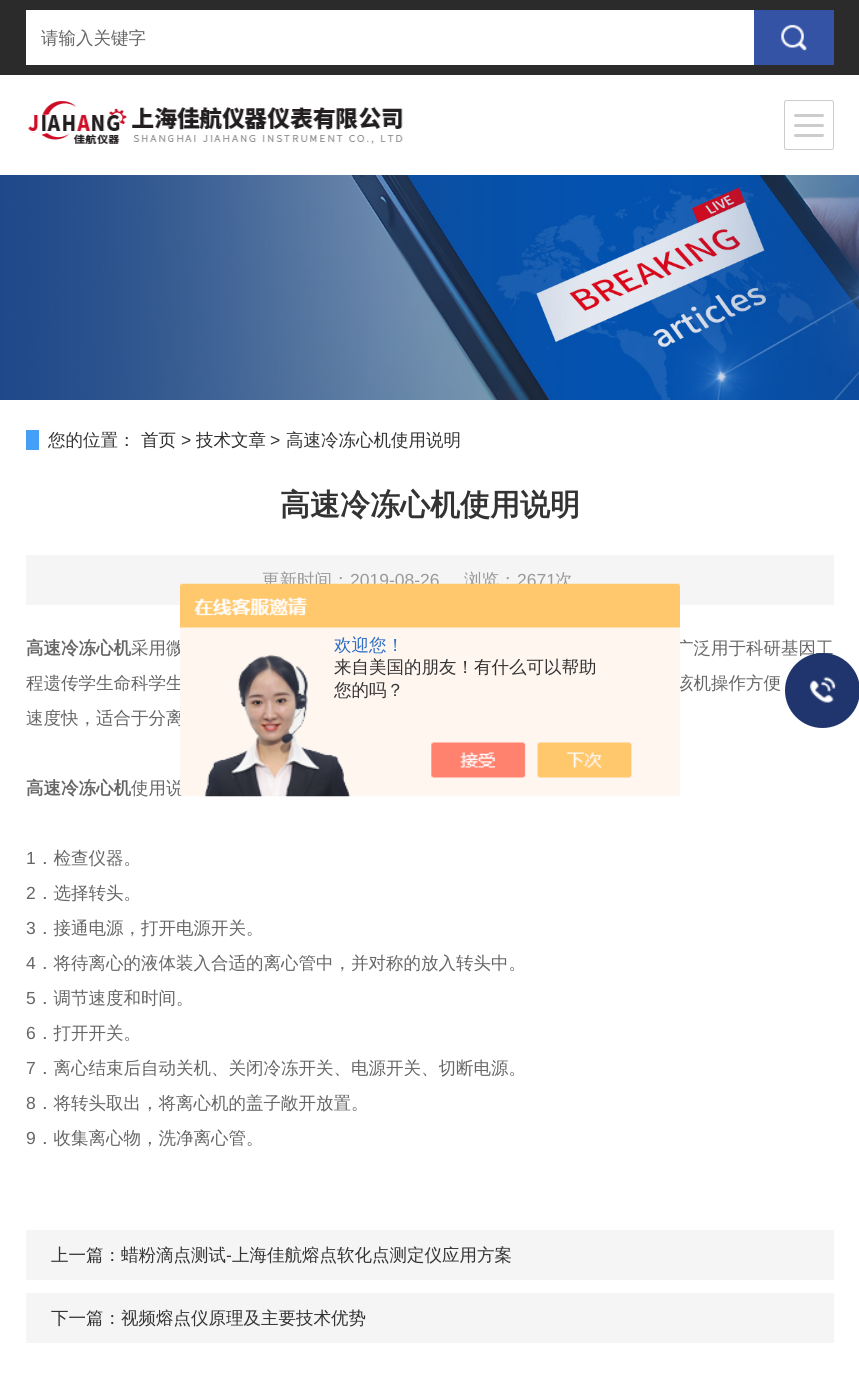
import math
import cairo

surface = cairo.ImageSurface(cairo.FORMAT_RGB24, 859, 1378)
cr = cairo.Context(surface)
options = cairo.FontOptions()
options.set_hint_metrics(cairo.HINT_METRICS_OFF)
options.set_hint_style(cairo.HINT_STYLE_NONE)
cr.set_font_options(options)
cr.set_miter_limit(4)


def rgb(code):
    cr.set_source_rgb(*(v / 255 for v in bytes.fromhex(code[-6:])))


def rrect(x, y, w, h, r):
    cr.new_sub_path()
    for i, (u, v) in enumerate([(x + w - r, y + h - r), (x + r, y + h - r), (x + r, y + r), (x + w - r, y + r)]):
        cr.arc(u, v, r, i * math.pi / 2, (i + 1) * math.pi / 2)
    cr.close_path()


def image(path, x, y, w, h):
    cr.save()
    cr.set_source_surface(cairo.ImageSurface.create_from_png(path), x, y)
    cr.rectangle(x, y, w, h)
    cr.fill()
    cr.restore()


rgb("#ffffff")
cr.paint()
for x, y, w, h, color in [
    (0, 0, 859, 75, "#2b2b2b"),
    (26, 10, 728, 55, "#ffffff"),
    (754, 10, 80, 55, "#3453a5"),
]:
    rgb(color)
    cr.rectangle(x, y, w, h)
    cr.fill()
image("img/1.png", 781, 24, 26, 27)
image("img/2.png", 28, 101, 375, 43)
rrect(784.5, 100.5, 49, 49, 2)
rgb("#cccccc")
cr.set_line_width(1)
cr.stroke()
rrect(794, 114, 30, 3, 1.5)
cr.fill()
rrect(794, 124, 30, 3, 1.5)
cr.fill()
rrect(794, 134, 30, 3, 1.5)
cr.fill()
image("img/3.png", 0, 175, 859, 225)
for x, y, w, h, color in [
    (26, 430, 13, 20, "#469ff7"),
    (26, 555, 808, 50, "#f5f5f5"),
    (26, 1230, 808, 50, "#f5f5f5"),
    (26, 1293, 808, 50, "#f5f5f5"),
]:
    rgb(color)
    cr.rectangle(x, y, w, h)
    cr.fill()
cr.select_font_face("WenQuanYi Zen Hei Medium")
cr.set_font_size(17.5)
rgb("#666666")
cr.move_to(41, 44)
cr.show_text("请输入关键字")
rgb("#333333")
cr.move_to(48, 446)
cr.show_text("您的位置：")
rgb("#2d2d2e")
cr.move_to(141, 446)
cr.show_text("首页")
cr.select_font_face("Liberation Sans")
rgb("#333333")
cr.move_to(181, 446)
cr.show_text(">")
cr.select_font_face("WenQuanYi Zen Hei Medium")
rgb("#2d2d2e")
cr.move_to(196, 446)
cr.show_text("技术文章")
cr.select_font_face("Liberation Sans")
rgb("#333333")
cr.move_to(270, 446)
cr.show_text(">")
cr.select_font_face("WenQuanYi Zen Hei Medium")
cr.move_to(286, 446)
cr.show_text("高速冷冻心机使用说明")
cr.select_font_face("WenQuanYi Zen Hei", cairo.FONT_SLANT_NORMAL, cairo.FONT_WEIGHT_BOLD)
cr.set_font_size(30)
cr.move_to(280, 515)
cr.show_text("高速冷冻心机使用说明")
cr.select_font_face("WenQuanYi Zen Hei Medium")
cr.set_font_size(17.5)
rgb("#999999")
cr.move_to(262, 586)
cr.show_text("更新时间：")
cr.select_font_face("Liberation Sans")
cr.move_to(350, 586)
cr.show_text("2019-08-26")
cr.select_font_face("WenQuanYi Zen Hei Medium")
cr.move_to(464, 586)
cr.show_text("浏览：")
cr.select_font_face("Liberation Sans")
cr.move_to(517, 586)
cr.show_text("2671")
cr.select_font_face("WenQuanYi Zen Hei Medium")
cr.move_to(555, 586)
cr.show_text("次")
cr.select_font_face("WenQuanYi Zen Hei", cairo.FONT_SLANT_NORMAL, cairo.FONT_WEIGHT_BOLD)
rgb("#666666")
cr.move_to(26, 654)
cr.show_text("高速冷冻心机")
cr.select_font_face("WenQuanYi Zen Hei Medium")
for x, y, s in [
    (131, 654, "采用微"),
    (676, 654, "广泛用于科研基因工"),
    (26, 689, "程遗传学生命科学生"),
    (676, 689, "该机操作方便"),
    (26, 724, "速度快，适合于分离"),
]:
    cr.move_to(x, y)
    cr.show_text(s)
cr.select_font_face("WenQuanYi Zen Hei", cairo.FONT_SLANT_NORMAL, cairo.FONT_WEIGHT_BOLD)
cr.move_to(26, 794)
cr.show_text("高速冷冻心机")
cr.select_font_face("WenQuanYi Zen Hei Medium")
cr.move_to(131, 794)
cr.show_text("使用说")
cr.select_font_face("Liberation Sans")
cr.move_to(26, 864)
cr.show_text("1")
cr.select_font_face("WenQuanYi Zen Hei Medium")
cr.move_to(36, 864)
cr.show_text("．检查仪器。")
cr.select_font_face("Liberation Sans")
cr.move_to(26, 899)
cr.show_text("2")
cr.select_font_face("WenQuanYi Zen Hei Medium")
cr.move_to(36, 899)
cr.show_text("．选择转头。")
cr.select_font_face("Liberation Sans")
cr.move_to(26, 934)
cr.show_text("3")
cr.select_font_face("WenQuanYi Zen Hei Medium")
cr.move_to(36, 934)
cr.show_text("．接通电源，打开电源开关。")
cr.select_font_face("Liberation Sans")
cr.move_to(26, 969)
cr.show_text("4")
cr.select_font_face("WenQuanYi Zen Hei Medium")
cr.move_to(36, 969)
cr.show_text("．将待离心的液体装入合适的离心管中，并对称的放入转头中。")
cr.select_font_face("Liberation Sans")
cr.move_to(26, 1004)
cr.show_text("5")
cr.select_font_face("WenQuanYi Zen Hei Medium")
cr.move_to(36, 1004)
cr.show_text("．调节速度和时间。")
cr.select_font_face("Liberation Sans")
cr.move_to(26, 1039)
cr.show_text("6")
cr.select_font_face("WenQuanYi Zen Hei Medium")
cr.move_to(36, 1039)
cr.show_text("．打开开关。")
cr.select_font_face("Liberation Sans")
cr.move_to(26, 1074)
cr.show_text("7")
cr.select_font_face("WenQuanYi Zen Hei Medium")
cr.move_to(36, 1074)
cr.show_text("．离心结束后自动关机、关闭冷冻开关、电源开关、切断电源。")
cr.select_font_face("Liberation Sans")
cr.move_to(26, 1109)
cr.show_text("8")
cr.select_font_face("WenQuanYi Zen Hei Medium")
cr.move_to(36, 1109)
cr.show_text("．将转头取出，将离心机的盖子敞开放置。")
cr.select_font_face("Liberation Sans")
cr.move_to(26, 1144)
cr.show_text("9")
cr.select_font_face("WenQuanYi Zen Hei Medium")
cr.move_to(36, 1144)
cr.show_text("．收集离心物，洗净离心管。")
rgb("#333333")
cr.move_to(51, 1261)
cr.show_text("上一篇：蜡粉滴点测试")
cr.select_font_face("Liberation Sans")
cr.move_to(226, 1261)
cr.show_text("-")
cr.select_font_face("WenQuanYi Zen Hei Medium")
cr.move_to(232, 1261)
cr.show_text("上海佳航熔点软化点测定仪应用方案")
cr.move_to(51, 1324)
cr.show_text("下一篇：视频熔点仪原理及主要技术优势")
image("img/4.png", 180, 583, 500, 214)
rgb("#2e6ec6")
cr.move_to(334, 651)
cr.show_text("欢迎您！")
rgb("#333333")
cr.move_to(334, 673)
cr.show_text("来自美国的朋友！有什么可以帮助")
cr.move_to(334, 696)
cr.show_text("您的吗？")
rgb("#20356e")
cr.new_path()
cr.arc(822.5, 690.5, 37.5, 0, 2 * math.pi)
cr.fill()
image("img/5.png", 809, 677, 27, 26)
surface.write_to_png("page.png")
